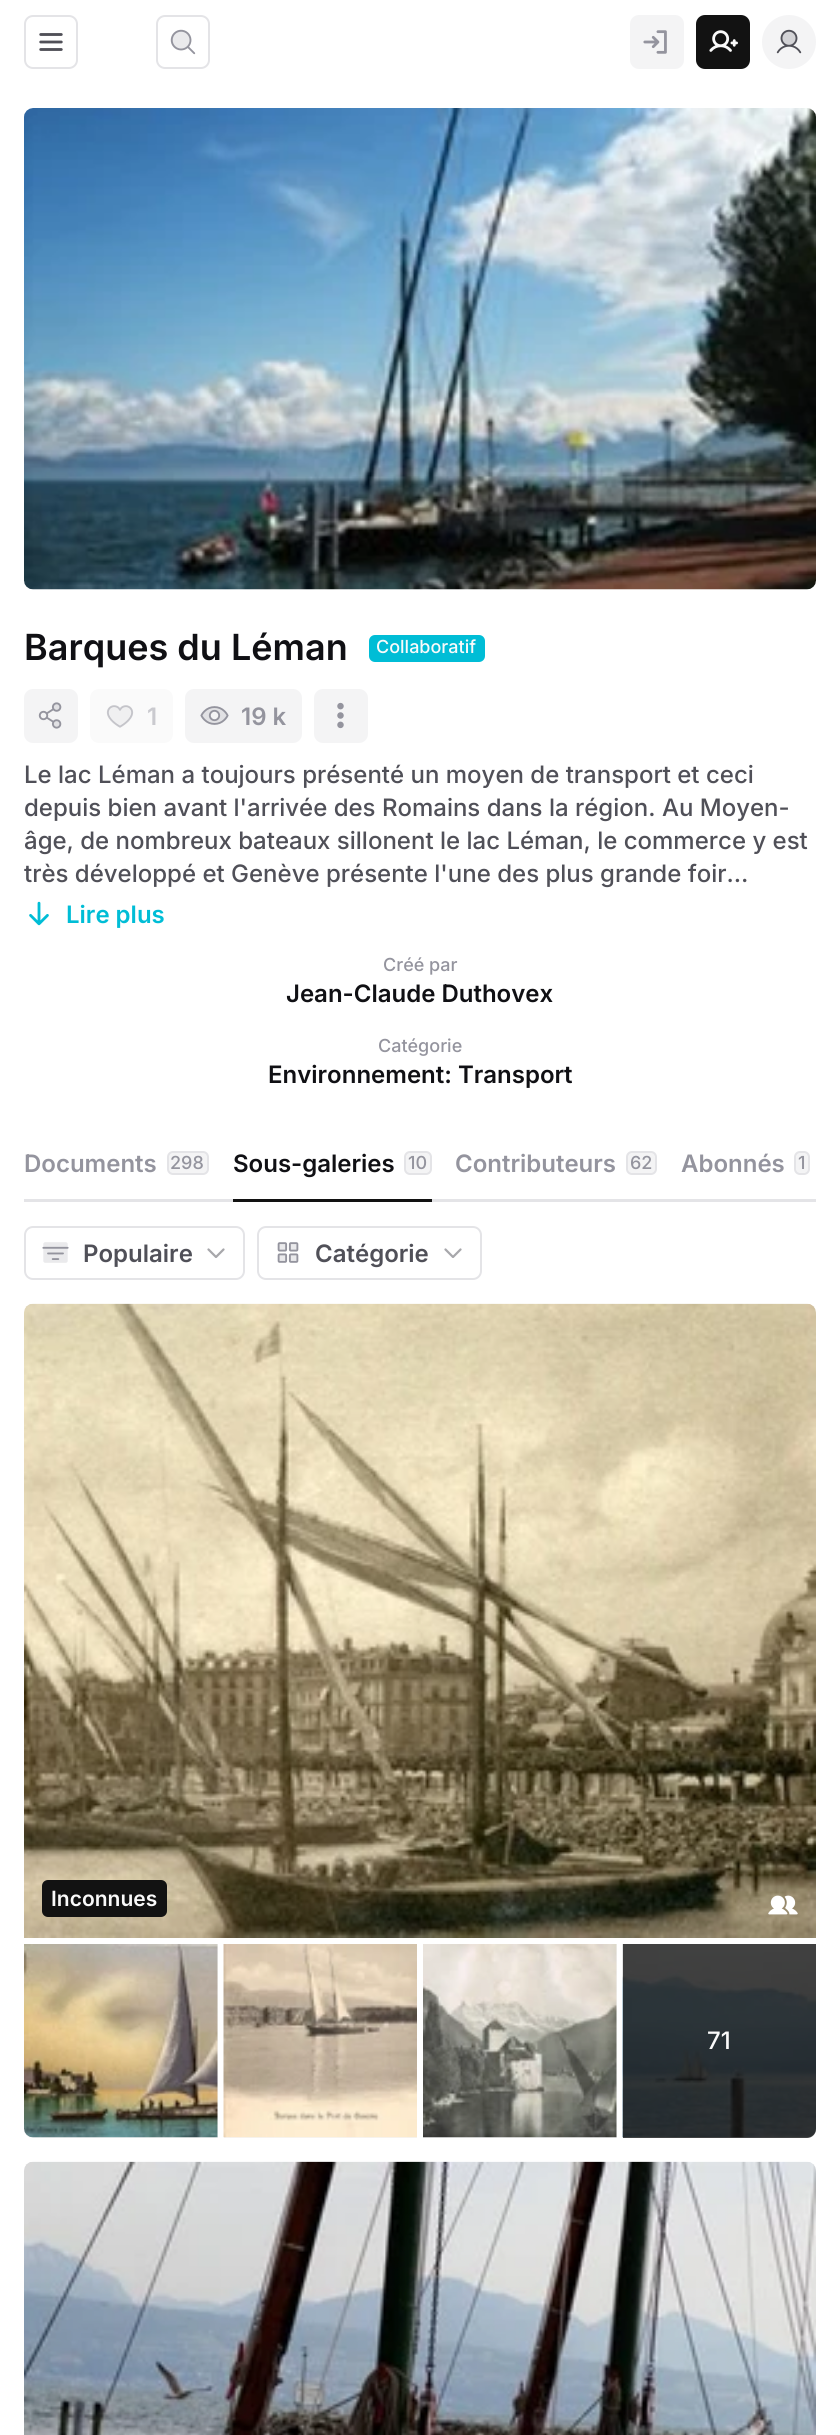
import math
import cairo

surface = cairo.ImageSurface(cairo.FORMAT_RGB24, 840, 2435)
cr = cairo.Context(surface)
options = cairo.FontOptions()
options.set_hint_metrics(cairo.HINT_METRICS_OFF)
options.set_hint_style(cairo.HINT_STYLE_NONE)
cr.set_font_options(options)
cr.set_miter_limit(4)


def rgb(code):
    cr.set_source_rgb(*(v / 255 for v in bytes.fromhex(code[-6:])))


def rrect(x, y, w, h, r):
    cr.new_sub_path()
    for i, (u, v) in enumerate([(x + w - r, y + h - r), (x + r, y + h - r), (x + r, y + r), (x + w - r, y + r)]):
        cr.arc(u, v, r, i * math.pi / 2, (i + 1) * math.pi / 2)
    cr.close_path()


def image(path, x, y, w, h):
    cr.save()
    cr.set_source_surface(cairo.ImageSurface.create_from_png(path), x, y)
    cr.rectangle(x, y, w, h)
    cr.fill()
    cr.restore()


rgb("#ffffff")
cr.paint()
rrect(25, 16, 52, 52, 8)
rgb("#e4e4e7")
cr.stroke()
image("img/1.png", 39, 33, 24, 18)
rrect(157, 16, 52, 52, 8)
cr.stroke()
image("img/2.png", 170, 29, 26, 26)
rgb("#f4f4f5")
rrect(630, 15, 54, 54, 9)
cr.fill()
image("img/3.png", 643, 30, 24, 24)
rgb("#121212")
rrect(696, 15, 54, 54, 9)
cr.fill()
image("img/4.png", 709, 30, 29, 22)
rgb("#f4f4f5")
cr.arc(789, 42, 27, 0, 2 * math.pi)
cr.fill()
image("img/5.png", 776, 29, 26, 25)
image("img/6.png", 24, 108, 792, 482)
rgb("#00bdd6")
rrect(369, 635, 116, 27, 6)
cr.fill()
rgb("#f4f4f5")
rrect(24, 689, 54, 54, 9)
cr.fill()
image("img/7.png", 38, 702, 24, 27)
rgb("#fafafa")
rrect(90, 689, 83, 54, 9)
cr.fill()
image("img/8.png", 106, 705, 28, 23)
rgb("#f4f4f5")
rrect(185, 689, 117, 54, 9)
cr.fill()
image("img/9.png", 200, 706, 29, 19)
rrect(314, 689, 54, 54, 9)
cr.fill()
image("img/10.png", 337, 702, 7, 27)
image("img/11.png", 29, 901, 20, 25)
rgb("#e4e4e7")
cr.rectangle(24, 1199, 792, 3)
cr.fill()
rgb("#f4f4f5")
rrect(168, 1152, 40, 22, 5)
cr.fill_preserve()
rgb("#e4e4e7")
cr.stroke()
rgb("#121212")
cr.rectangle(233, 1199, 199, 3)
cr.fill()
rgb("#f4f4f5")
rrect(405, 1152, 26, 22, 5)
cr.fill_preserve()
rgb("#e4e4e7")
cr.stroke()
rgb("#f4f4f5")
rrect(627, 1152, 29, 22, 5)
cr.fill_preserve()
rgb("#e4e4e7")
cr.stroke()
rgb("#f4f4f5")
rrect(795, 1152, 14, 22, 5)
cr.fill_preserve()
rgb("#e4e4e7")
cr.stroke()
rrect(25, 1227, 219, 52, 8)
cr.stroke()
image("img/12.png", 42, 1242, 27, 21)
image("img/13.png", 207, 1248, 18, 10)
rrect(258, 1227, 223, 52, 8)
cr.stroke()
image("img/14.png", 277, 1242, 22, 21)
image("img/13.png", 444, 1248, 18, 10)
image("img/15.png", 24, 1303, 792, 635)
rgb("#121212")
rrect(42, 1880, 125, 37, 6)
cr.fill()
image("img/16.png", 768, 1895, 30, 20)
rgb("#f4f4f5")
cr.new_path()
cr.move_to(24, 1944)
cr.line_to(218, 1944)
cr.line_to(218, 2138)
cr.line_to(33, 2138)
cr.curve_to(28, 2138, 24, 2134, 24, 2129)
cr.close_path()
cr.fill()
image("img/17.png", 24, 1944, 194, 194)
cr.rectangle(224, 2137, 193, 1)
cr.fill()
image("img/18.png", 223, 1944, 194, 194)
cr.rectangle(423, 1944, 194, 194)
cr.fill()
image("img/19.png", 423, 1944, 194, 194)
cr.new_path()
cr.move_to(623, 1944)
cr.line_to(816, 1944)
cr.line_to(816, 2129)
cr.curve_to(816, 2134, 812, 2138, 807, 2138)
cr.line_to(623, 2138)
cr.close_path()
cr.fill()
image("img/20.png", 622, 1944, 194, 194)
cr.set_source_rgba(0.071, 0.071, 0.071, 0.75)
cr.new_path()
cr.move_to(623, 1944)
cr.line_to(816, 1944)
cr.line_to(816, 2129)
cr.curve_to(816, 2134, 812, 2138, 807, 2138)
cr.line_to(623, 2138)
cr.close_path()
cr.fill()
image("img/21.png", 24, 2161, 792, 274)
cr.select_font_face("Inter SemiBold")
cr.set_font_size(36)
rgb("#101014")
cr.move_to(24, 660)
cr.show_text("Barques du Léman")
cr.select_font_face("Inter Medium")
cr.set_font_size(18)
rgb("#fafafa")
cr.move_to(376, 653)
cr.show_text("Collaboratif")
cr.select_font_face("Inter SemiBold")
cr.set_font_size(24)
rgb("#cacacf")
cr.move_to(147, 725)
cr.show_text("1")
rgb("#94949e")
cr.move_to(241, 725)
cr.show_text("19 k")
cr.select_font_face("Inter Medium")
rgb("#505058")
for x, y, s in [
    (24, 783, "Le lac Léman a toujours présenté un moyen de transport et ceci"),
    (24, 816, "depuis bien avant l'arrivée des Romains dans la région. Au Moyen-"),
    (24, 849, "âge, de nombreux bateaux sillonent le lac Léman, le commerce y est"),
    (24, 882, "très développé et Genève présente l'une des plus grande foir…"),
]:
    cr.move_to(x, y)
    cr.show_text(s)
cr.select_font_face("Inter SemiBold")
rgb("#00bdd6")
cr.move_to(66, 923)
cr.show_text("Lire plus")
cr.select_font_face("Inter Medium")
cr.set_font_size(18)
rgb("#94949e")
cr.move_to(383, 971)
cr.show_text("Créé par")
cr.select_font_face("Inter SemiBold")
cr.set_font_size(24)
rgb("#101014")
cr.move_to(286, 1002)
cr.show_text("Jean-Claude Duthovex")
cr.select_font_face("Inter Medium")
cr.set_font_size(18)
rgb("#94949e")
cr.move_to(378, 1052)
cr.show_text("Catégorie")
cr.select_font_face("Inter SemiBold")
cr.set_font_size(24)
rgb("#101014")
cr.move_to(268, 1083)
cr.show_text("Environnement: Transport")
rgb("#94949e")
cr.move_to(24, 1172)
cr.show_text("Documents")
cr.select_font_face("Inter Medium")
cr.set_font_size(18)
cr.move_to(170, 1169)
cr.show_text("298")
cr.select_font_face("Inter SemiBold")
cr.set_font_size(24)
rgb("#101014")
cr.move_to(233, 1172)
cr.show_text("Sous-galeries")
cr.select_font_face("Inter Medium")
cr.set_font_size(18)
rgb("#94949e")
cr.move_to(408, 1169)
cr.show_text("10")
cr.select_font_face("Inter SemiBold")
cr.set_font_size(24)
cr.move_to(455, 1172)
cr.show_text("Contributeurs")
cr.select_font_face("Inter Medium")
cr.set_font_size(18)
cr.move_to(630, 1169)
cr.show_text("62")
cr.select_font_face("Inter SemiBold")
cr.set_font_size(24)
cr.move_to(681, 1172)
cr.show_text("Abonnés")
cr.select_font_face("Inter Medium")
cr.set_font_size(18)
cr.move_to(798, 1169)
cr.show_text("1")
cr.select_font_face("Inter SemiBold")
cr.set_font_size(24)
rgb("#505058")
cr.move_to(83, 1262)
cr.show_text("Populaire")
cr.move_to(315, 1262)
cr.show_text("Catégorie")
cr.set_font_size(21)
rgb("#fafafa")
cr.move_to(51, 1906)
cr.show_text("Inconnues")
cr.select_font_face("Inter Medium")
cr.set_font_size(24)
cr.move_to(707, 2049)
cr.show_text("71")
surface.write_to_png("page.png")
